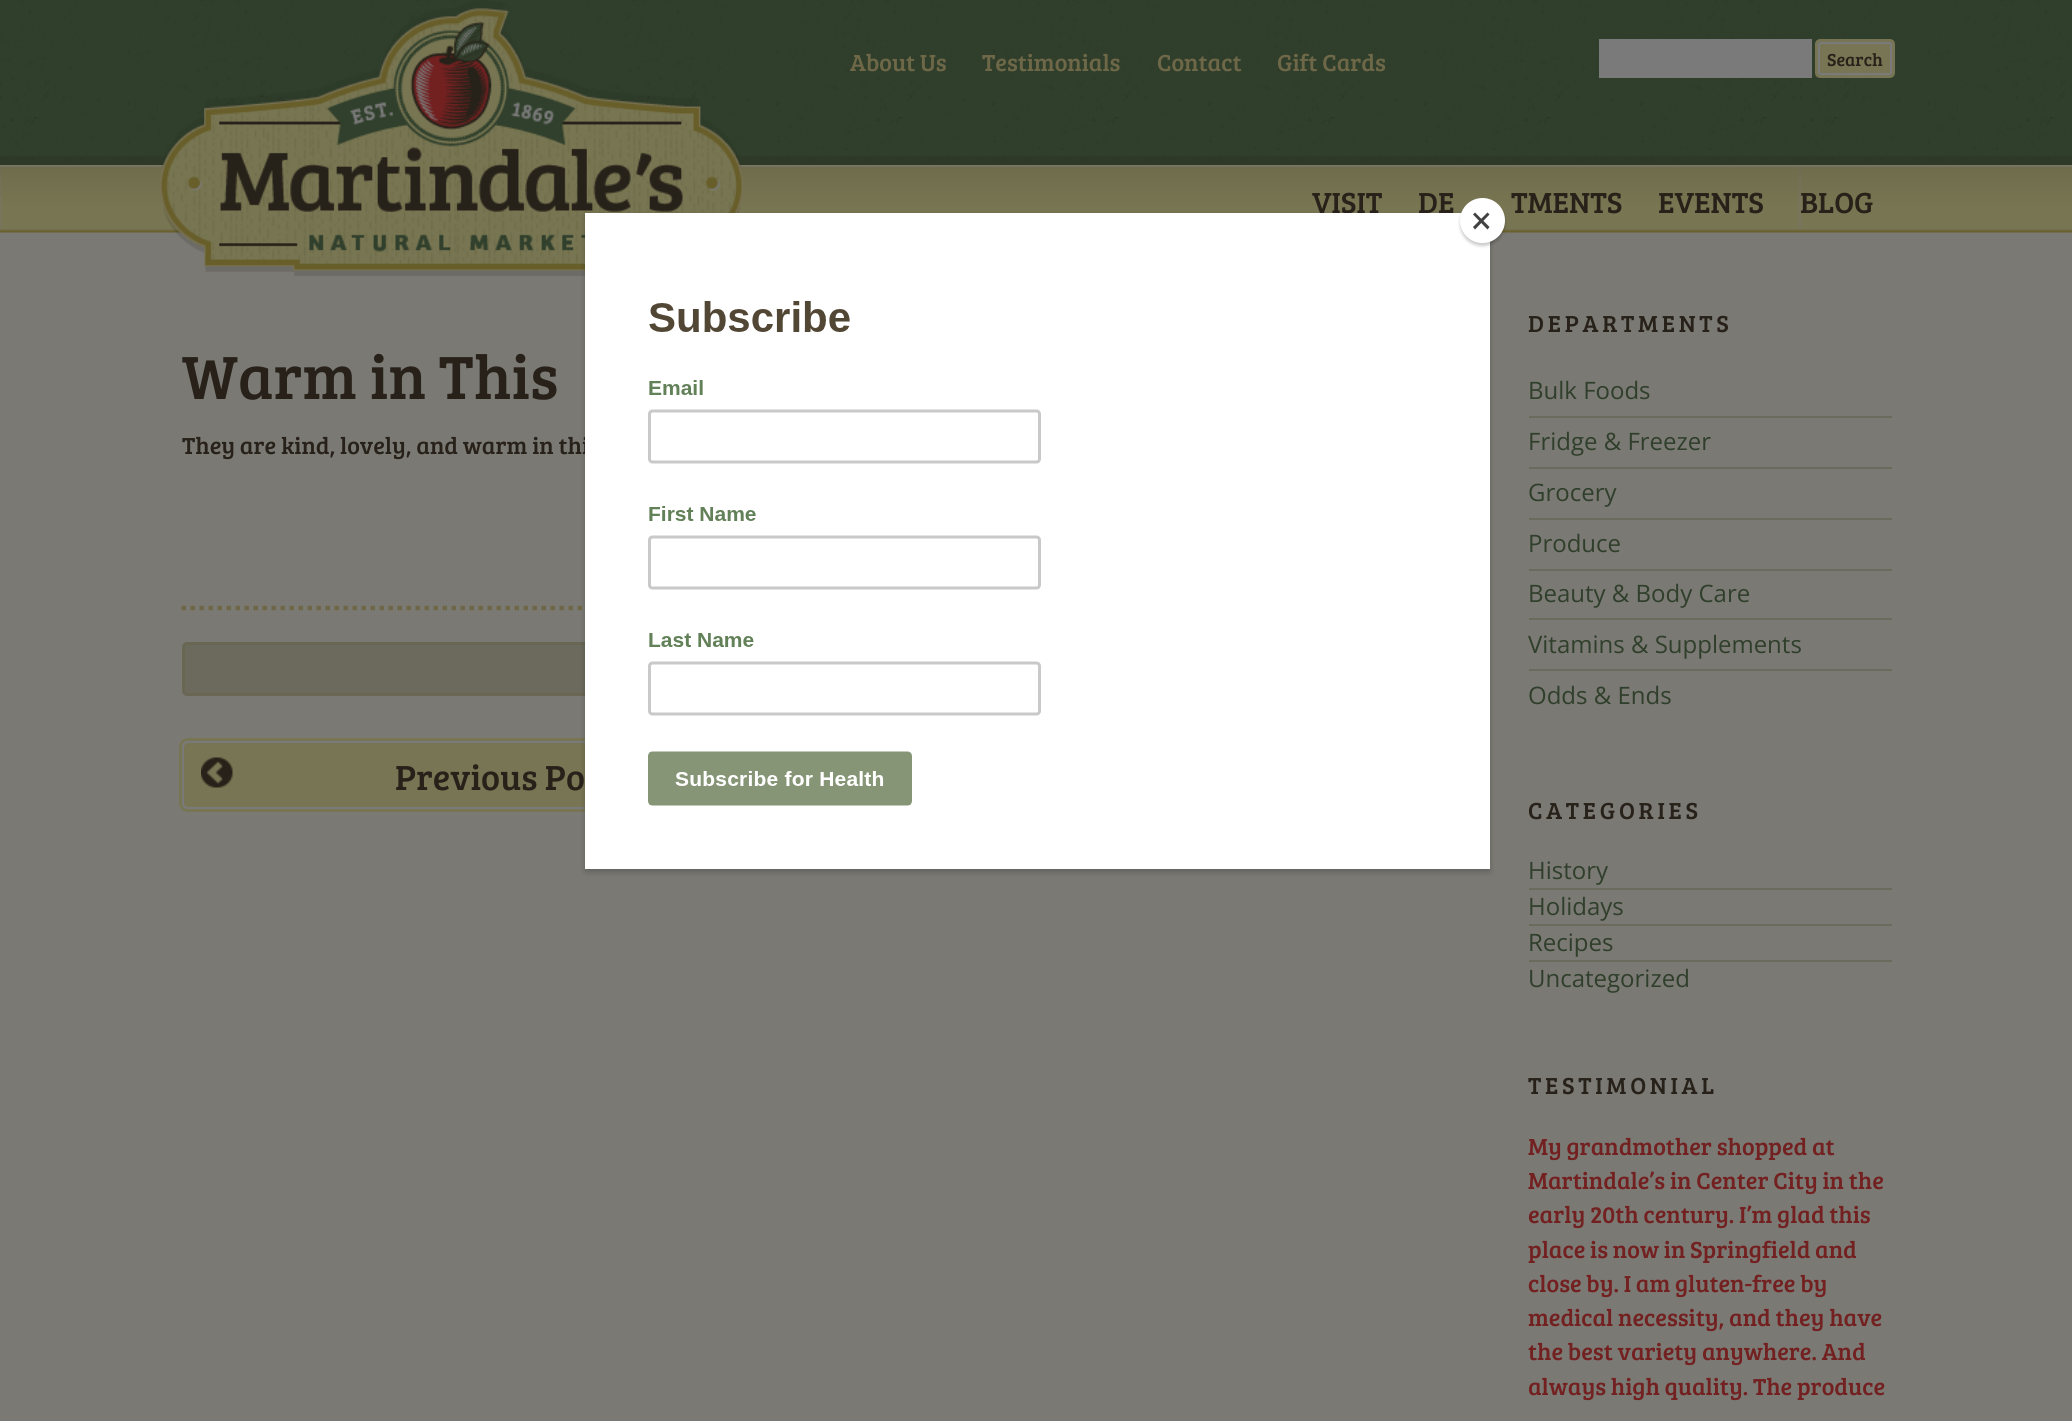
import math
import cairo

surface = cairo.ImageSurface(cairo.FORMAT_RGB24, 2072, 1421)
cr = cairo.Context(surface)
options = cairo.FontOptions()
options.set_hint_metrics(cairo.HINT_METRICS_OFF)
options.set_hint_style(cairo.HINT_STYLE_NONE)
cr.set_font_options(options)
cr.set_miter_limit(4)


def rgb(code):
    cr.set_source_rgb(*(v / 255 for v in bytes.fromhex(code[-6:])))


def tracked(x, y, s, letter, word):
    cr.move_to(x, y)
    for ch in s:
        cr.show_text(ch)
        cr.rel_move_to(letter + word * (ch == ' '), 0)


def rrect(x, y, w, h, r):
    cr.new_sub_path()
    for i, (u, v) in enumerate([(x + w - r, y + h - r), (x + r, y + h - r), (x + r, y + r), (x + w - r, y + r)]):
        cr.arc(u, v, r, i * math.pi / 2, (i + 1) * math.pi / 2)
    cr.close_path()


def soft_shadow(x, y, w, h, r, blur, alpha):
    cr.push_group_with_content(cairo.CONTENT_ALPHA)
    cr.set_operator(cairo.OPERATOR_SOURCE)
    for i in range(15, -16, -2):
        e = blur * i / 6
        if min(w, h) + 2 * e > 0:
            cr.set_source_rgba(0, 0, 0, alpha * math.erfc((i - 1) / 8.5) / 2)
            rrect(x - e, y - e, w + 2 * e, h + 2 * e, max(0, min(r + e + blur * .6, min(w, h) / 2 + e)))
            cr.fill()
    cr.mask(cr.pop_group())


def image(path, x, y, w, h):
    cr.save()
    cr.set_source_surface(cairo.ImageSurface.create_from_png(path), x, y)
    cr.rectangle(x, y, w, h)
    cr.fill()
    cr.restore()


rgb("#7a7974")
cr.paint()
image("img/1.png", 0, 0, 2072, 165)
image("img/3.png", 0, 165, 2072, 68)
image("img/2.png", 159, 0, 585, 276)
rgb("#7a7a7a")
cr.rectangle(1599, 39, 213, 39)
cr.fill()
rrect(1816.5, 40.5, 77, 36, 3.5)
rgb("#777553")
cr.set_line_width(3)
cr.stroke()
rrect(1819, 43, 72, 31, 0.5)
cr.fill_preserve()
rgb("#7a7a7a")
cr.set_line_width(2)
cr.stroke()
cr.new_path()
cr.move_to(181.5, 608)
cr.line_to(1411.5, 608)
rgb("#6e6848")
cr.set_line_width(4.5)
cr.set_dash([4.5, 4.5])
cr.stroke()
rgb("#6c6a5c")
rrect(183.5, 643.5, 1227, 51, 3.5)
cr.fill_preserve()
rgb("#696654")
cr.set_line_width(3)
cr.set_dash([])
cr.stroke()
rrect(180.5, 739.5, 618, 71, 7.5)
rgb("#777553")
cr.stroke()
rrect(183, 742, 613, 66, 5)
cr.fill_preserve()
rgb("#7a7a7a")
cr.set_line_width(2)
cr.stroke()
image("img/4.png", 201, 757, 32, 31)
for x, y, w, h, color in [
    (1529, 416, 363, 2, "#6c6a5c"),
    (1529, 467, 363, 2, "#6c6a5c"),
    (1529, 518, 363, 2, "#6c6a5c"),
    (1529, 569, 363, 2, "#6c6a5c"),
    (1529, 618, 363, 2, "#6c6a5c"),
    (1529, 669, 363, 2, "#6c6a5c"),
    (1529, 888, 363, 2, "#6c6a5c"),
    (1529, 924, 363, 2, "#6c6a5c"),
    (1529, 960, 363, 2, "#6c6a5c"),
]:
    rgb(color)
    cr.rectangle(x, y, w, h)
    cr.fill()
rgb("#000000")
soft_shadow(585, 216, 905, 656, 0, 3, 0.2)
cr.select_font_face("Bree Serif")
cr.set_font_size(24)
rgb("#6e6848")
for x, y, s in [
    (850, 71, "About Us"),
    (982, 71, "Testimonials"),
    (1157, 71, "Contact"),
    (1277, 71, "Gift Cards"),
]:
    cr.move_to(x, y)
    cr.show_text(s)
cr.set_font_size(18)
rgb("#272119")
cr.move_to(1827, 66)
cr.show_text("Search")
cr.set_font_size(30)
for x, y, s in [
    (1312, 213, "VISIT"),
    (1418, 213, "DE"),
    (1511, 213, "TMENTS"),
    (1658, 213, "EVENTS"),
    (1800, 213, "BLOG"),
]:
    cr.move_to(x, y)
    cr.show_text(s)
cr.set_font_size(63)
cr.move_to(182, 399)
cr.show_text("Warm in This")
cr.set_font_size(24)
cr.move_to(182, 454)
cr.show_text("They are kind, lovely, and warm in thi")
cr.set_font_size(36)
cr.move_to(395, 790)
cr.show_text("Previous Po")
cr.set_font_size(24)
tracked(1528, 332, "DEPARTMENTS", 3.75, 0)
cr.select_font_face("Open Sans")
rgb("#303f2b")
for x, y, s in [
    (1528, 399, "Bulk Foods"),
    (1528, 450, "Fridge & Freezer"),
    (1528, 501, "Grocery"),
    (1528, 552, "Produce"),
    (1528, 602, "Beauty & Body Care"),
    (1528, 653, "Vitamins & Supplements"),
    (1528, 704, "Odds & Ends"),
]:
    cr.move_to(x, y)
    cr.show_text(s)
cr.select_font_face("Bree Serif")
rgb("#272119")
tracked(1528, 819, "CATEGORIES", 3.75, 0)
cr.select_font_face("Open Sans")
rgb("#303f2b")
for x, y, s in [
    (1528, 879, "History"),
    (1528, 915, "Holidays"),
    (1528, 951, "Recipes"),
    (1528, 987, "Uncategorized"),
]:
    cr.move_to(x, y)
    cr.show_text(s)
cr.select_font_face("Bree Serif")
rgb("#272119")
tracked(1528, 1094, "TESTIMONIAL", 3.75, 0)
rgb("#732020")
for x, y, s in [
    (1528, 1155, "My grandmother shopped at"),
    (1528, 1189, "Martindale’s in Center City in the"),
    (1528, 1223, "early 20th century. I’m glad this"),
    (1528, 1258, "place is now in Springfield and"),
    (1528, 1292, "close by. I am gluten-free by"),
    (1528, 1326, "medical necessity, and they have"),
    (1528, 1360, "the best variety anywhere. And"),
    (1528, 1395, "always high quality. The produce"),
]:
    cr.move_to(x, y)
    cr.show_text(s)
image("img/5.png", 585, 213, 905, 656)
rgb("#000000")
soft_shadow(1460, 201, 45, 45, 22.5, 1.5, 0.2)
rgb("#ffffff")
cr.arc(1482.5, 220.5, 22.5, 0, 2 * math.pi)
cr.fill()
rgb("#414141")
cr.new_path()
cr.move_to(1487.5, 212.5)
cr.line_to(1489.5, 214.5)
cr.line_to(1475, 229.5)
cr.line_to(1473, 227)
cr.close_path()
cr.fill()
cr.new_path()
cr.move_to(1473, 214.5)
cr.line_to(1475, 212.5)
cr.line_to(1489.5, 227)
cr.line_to(1487.5, 229.5)
cr.close_path()
cr.fill()
surface.write_to_png("page.png")
